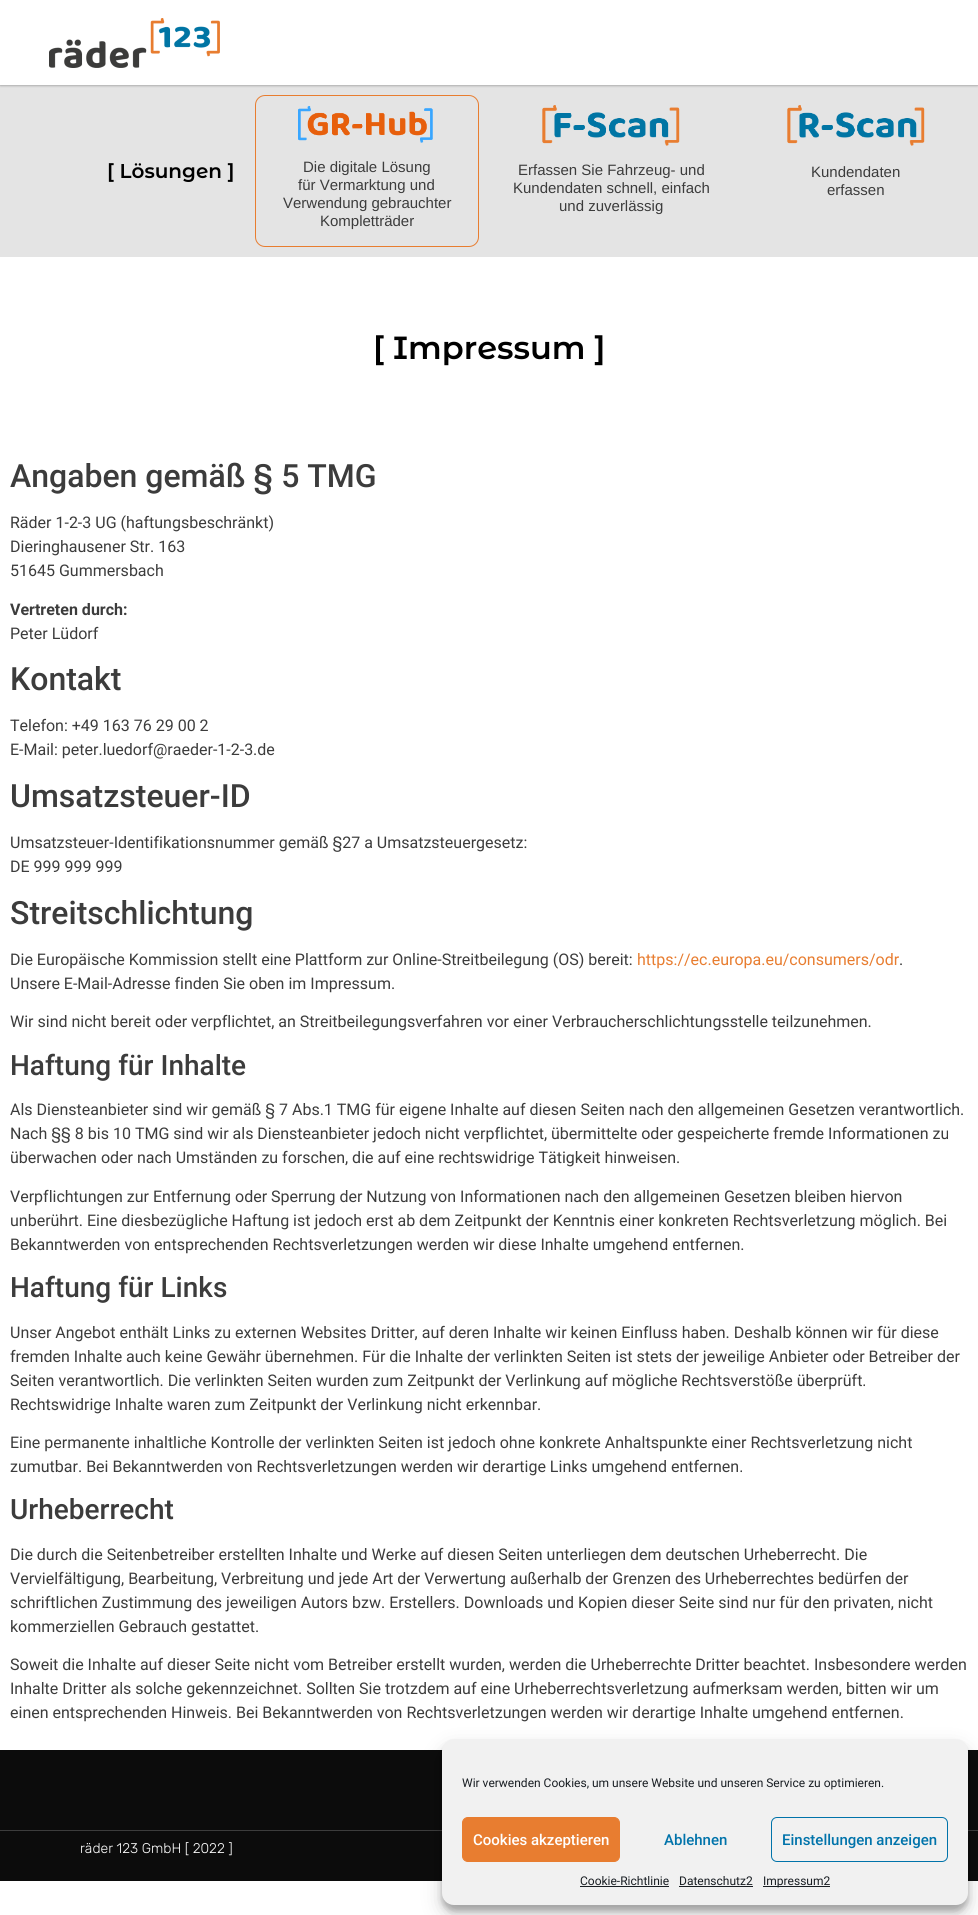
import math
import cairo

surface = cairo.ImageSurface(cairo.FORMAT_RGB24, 978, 1915)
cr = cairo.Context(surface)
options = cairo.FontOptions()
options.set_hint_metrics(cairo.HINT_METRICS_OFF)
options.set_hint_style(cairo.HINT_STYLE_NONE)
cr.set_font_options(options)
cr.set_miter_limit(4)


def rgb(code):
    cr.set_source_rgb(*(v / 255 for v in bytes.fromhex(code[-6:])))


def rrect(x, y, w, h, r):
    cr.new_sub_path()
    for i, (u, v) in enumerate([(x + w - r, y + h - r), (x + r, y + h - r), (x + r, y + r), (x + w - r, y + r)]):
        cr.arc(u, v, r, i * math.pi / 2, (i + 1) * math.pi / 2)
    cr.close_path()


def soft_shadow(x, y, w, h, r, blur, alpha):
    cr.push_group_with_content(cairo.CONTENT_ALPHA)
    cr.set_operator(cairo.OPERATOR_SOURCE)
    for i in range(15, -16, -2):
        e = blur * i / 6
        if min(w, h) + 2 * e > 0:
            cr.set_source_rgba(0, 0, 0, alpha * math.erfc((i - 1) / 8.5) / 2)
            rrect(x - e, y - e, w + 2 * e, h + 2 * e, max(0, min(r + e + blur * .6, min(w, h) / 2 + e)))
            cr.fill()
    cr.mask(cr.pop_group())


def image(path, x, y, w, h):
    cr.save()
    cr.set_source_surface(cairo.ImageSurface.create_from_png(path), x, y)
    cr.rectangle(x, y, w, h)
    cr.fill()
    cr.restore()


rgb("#ffffff")
cr.paint()
rgb("#e4e4e4")
cr.rectangle(0, 85, 978, 172)
cr.fill()
cr.save()
cr.rectangle(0, 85, 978, 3)
cr.clip()
rgb("#181818")
soft_shadow(0, 0, 978, 85, 0, 1.5, 0.5)
cr.restore()
image("img/1.png", 49, 18, 171, 50)
rrect(255.5, 95.5, 223, 151, 9.5)
rgb("#e87d30")
cr.set_line_width(1)
cr.stroke()
image("img/2.png", 298, 106, 135, 37)
image("img/3.png", 542, 105, 138, 41)
image("img/4.png", 787, 105, 138, 41)
for x, y, w, h, color in [
    (0, 1750, 978, 80, "#0c0c0c"),
    (0, 1831, 978, 50, "#0c0c0c"),
    (0, 1830, 978, 1, "#3d3d3d"),
]:
    rgb(color)
    cr.rectangle(x, y, w, h)
    cr.fill()
rgb("#000000")
soft_shadow(442, 1745, 526, 166, 12, 3, 0.23)
soft_shadow(442, 1749, 526, 166, 12, 10, 0.19)
rgb("#f1f1f1")
rrect(442, 1739, 526, 166, 12)
cr.fill()
rgb("#e87d30")
rrect(462.5, 1817.5, 157, 44, 5.5)
cr.fill_preserve()
cr.stroke()
rrect(771.5, 1817.5, 176, 44, 5.5)
rgb("#0073aa")
cr.stroke()
for x, y, w, h, color in [
    (580, 1886, 89, 1, "#191e23"),
    (679, 1886, 74, 1, "#191e23"),
    (763, 1886, 67, 1, "#191e23"),
]:
    rgb(color)
    cr.rectangle(x, y, w, h)
    cr.fill()
cr.select_font_face("Montserrat Alternates SemiBold")
cr.set_font_size(20)
rgb("#000000")
cr.move_to(107, 178)
cr.show_text("[ Lösungen ]")
cr.select_font_face("Liberation Sans")
cr.set_font_size(15)
rgb("#3c3c3c")
for x, y, s in [
    (303, 172, "Die digitale Lösung"),
    (298, 190, "für Vermarktung und"),
    (283, 208, "Verwendung gebrauchter"),
    (320, 226, "Kompletträder"),
    (518, 175, "Erfassen Sie Fahrzeug- und"),
    (513, 193, "Kundendaten schnell, einfach"),
    (559, 211, "und zuverlässig"),
    (811, 177, "Kundendaten"),
    (827, 195, "erfassen"),
]:
    cr.move_to(x, y)
    cr.show_text(s)
cr.select_font_face("Montserrat Alternates SemiBold")
cr.set_font_size(32)
rgb("#000000")
cr.move_to(373, 359)
cr.show_text("[ Impressum ]")
cr.select_font_face("Roboto Medium")
rgb("#3c3c3c")
cr.move_to(10, 487)
cr.show_text("Angaben gemäß § 5 TMG")
cr.select_font_face("Roboto")
cr.set_font_size(16)
for x, y, s in [
    (10, 528, "Räder 1-2-3 UG (haftungsbeschränkt)"),
    (10, 552, "Dieringhausener Str. 163"),
    (10, 576, "51645 Gummersbach"),
]:
    cr.move_to(x, y)
    cr.show_text(s)
cr.select_font_face("Roboto", cairo.FONT_SLANT_NORMAL, cairo.FONT_WEIGHT_BOLD)
cr.move_to(10, 615)
cr.show_text("Vertreten durch:")
cr.select_font_face("Roboto")
cr.move_to(10, 639)
cr.show_text("Peter Lüdorf")
cr.select_font_face("Roboto Medium")
cr.set_font_size(32)
cr.move_to(10, 690)
cr.show_text("Kontakt")
cr.select_font_face("Roboto")
cr.set_font_size(16)
cr.move_to(10, 731)
cr.show_text("Telefon: +49 163 76 29 00 2")
cr.move_to(10, 755)
cr.show_text("E-Mail: peter.luedorf@raeder-1-2-3.de")
cr.select_font_face("Roboto Medium")
cr.set_font_size(32)
cr.move_to(10, 807)
cr.show_text("Umsatzsteuer-ID")
cr.select_font_face("Roboto")
cr.set_font_size(16)
cr.move_to(10, 848)
cr.show_text("Umsatzsteuer-Identifikationsnummer gemäß §27 a Umsatzsteuergesetz:")
cr.move_to(10, 872)
cr.show_text("DE 999 999 999")
cr.select_font_face("Roboto Medium")
cr.set_font_size(32)
cr.move_to(10, 924)
cr.show_text("Streitschlichtung")
cr.select_font_face("Roboto")
cr.set_font_size(16)
cr.move_to(10, 965)
cr.show_text("Die Europäische Kommission stellt eine Plattform zur Online-Streitbeilegung (OS) bereit:")
rgb("#e87d30")
cr.move_to(637, 965)
cr.show_text("https://ec.europa.eu/consumers/odr")
rgb("#3c3c3c")
for x, y, s in [
    (899, 965, "."),
    (10, 989, "Unsere E-Mail-Adresse finden Sie oben im Impressum."),
    (10, 1027, "Wir sind nicht bereit oder verpflichtet, an Streitbeilegungsverfahren vor einer Verbraucherschlichtungsstelle teilzunehmen."),
]:
    cr.move_to(x, y)
    cr.show_text(s)
cr.select_font_face("Roboto Medium")
cr.set_font_size(28)
cr.move_to(10, 1075)
cr.show_text("Haftung für Inhalte")
cr.select_font_face("Roboto")
cr.set_font_size(16)
for x, y, s in [
    (10, 1115, "Als Diensteanbieter sind wir gemäß § 7 Abs.1 TMG für eigene Inhalte auf diesen Seiten nach den allgemeinen Gesetzen verantwortlich."),
    (10, 1139, "Nach §§ 8 bis 10 TMG sind wir als Diensteanbieter jedoch nicht verpflichtet, übermittelte oder gespeicherte fremde Informationen zu"),
    (10, 1163, "überwachen oder nach Umständen zu forschen, die auf eine rechtswidrige Tätigkeit hinweisen."),
    (10, 1202, "Verpflichtungen zur Entfernung oder Sperrung der Nutzung von Informationen nach den allgemeinen Gesetzen bleiben hiervon"),
    (10, 1226, "unberührt. Eine diesbezügliche Haftung ist jedoch erst ab dem Zeitpunkt der Kenntnis einer konkreten Rechtsverletzung möglich. Bei"),
    (10, 1250, "Bekanntwerden von entsprechenden Rechtsverletzungen werden wir diese Inhalte umgehend entfernen."),
]:
    cr.move_to(x, y)
    cr.show_text(s)
cr.select_font_face("Roboto Medium")
cr.set_font_size(28)
cr.move_to(10, 1297)
cr.show_text("Haftung für Links")
cr.select_font_face("Roboto")
cr.set_font_size(16)
for x, y, s in [
    (10, 1338, "Unser Angebot enthält Links zu externen Websites Dritter, auf deren Inhalte wir keinen Einfluss haben. Deshalb können wir für diese"),
    (10, 1362, "fremden Inhalte auch keine Gewähr übernehmen. Für die Inhalte der verlinkten Seiten ist stets der jeweilige Anbieter oder Betreiber der"),
    (10, 1386, "Seiten verantwortlich. Die verlinkten Seiten wurden zum Zeitpunkt der Verlinkung auf mögliche Rechtsverstöße überprüft."),
    (10, 1410, "Rechtswidrige Inhalte waren zum Zeitpunkt der Verlinkung nicht erkennbar."),
    (10, 1448, "Eine permanente inhaltliche Kontrolle der verlinkten Seiten ist jedoch ohne konkrete Anhaltspunkte einer Rechtsverletzung nicht"),
    (10, 1472, "zumutbar. Bei Bekanntwerden von Rechtsverletzungen werden wir derartige Links umgehend entfernen."),
]:
    cr.move_to(x, y)
    cr.show_text(s)
cr.select_font_face("Roboto Medium")
cr.set_font_size(28)
cr.move_to(10, 1519)
cr.show_text("Urheberrecht")
cr.select_font_face("Roboto")
cr.set_font_size(16)
for x, y, s in [
    (10, 1560, "Die durch die Seitenbetreiber erstellten Inhalte und Werke auf diesen Seiten unterliegen dem deutschen Urheberrecht. Die"),
    (10, 1584, "Vervielfältigung, Bearbeitung, Verbreitung und jede Art der Verwertung außerhalb der Grenzen des Urheberrechtes bedürfen der"),
    (10, 1608, "schriftlichen Zustimmung des jeweiligen Autors bzw. Erstellers. Downloads und Kopien dieser Seite sind nur für den privaten, nicht"),
    (10, 1632, "kommerziellen Gebrauch gestattet."),
    (10, 1670, "Soweit die Inhalte auf dieser Seite nicht vom Betreiber erstellt wurden, werden die Urheberrechte Dritter beachtet. Insbesondere werden"),
    (10, 1694, "Inhalte Dritter als solche gekennzeichnet. Sollten Sie trotzdem auf eine Urheberrechtsverletzung aufmerksam werden, bitten wir um"),
    (10, 1718, "einen entsprechenden Hinweis. Bei Bekanntwerden von Rechtsverletzungen werden wir derartige Inhalte umgehend entfernen."),
]:
    cr.move_to(x, y)
    cr.show_text(s)
cr.select_font_face("Rubik Light")
cr.set_font_size(14)
rgb("#ffffff")
cr.move_to(80, 1853)
cr.show_text("räder 123 GmbH [ 2022 ]")
cr.select_font_face("Roboto")
cr.set_font_size(12)
rgb("#191e23")
cr.move_to(462, 1787)
cr.show_text("Wir verwenden Cookies, um unsere Website und unseren Service zu optimieren.")
cr.select_font_face("Roboto Medium")
cr.set_font_size(15)
rgb("#ffffff")
cr.move_to(473, 1845)
cr.show_text("Cookies akzeptieren")
rgb("#0073aa")
cr.move_to(664, 1845)
cr.show_text("Ablehnen")
cr.move_to(782, 1845)
cr.show_text("Einstellungen anzeigen")
cr.select_font_face("Roboto")
cr.set_font_size(12)
rgb("#191e23")
for x, y, s in [
    (580, 1885, "Cookie-Richtlinie"),
    (679, 1885, "Datenschutz2"),
    (763, 1885, "Impressum2"),
]:
    cr.move_to(x, y)
    cr.show_text(s)
surface.write_to_png("page.png")
